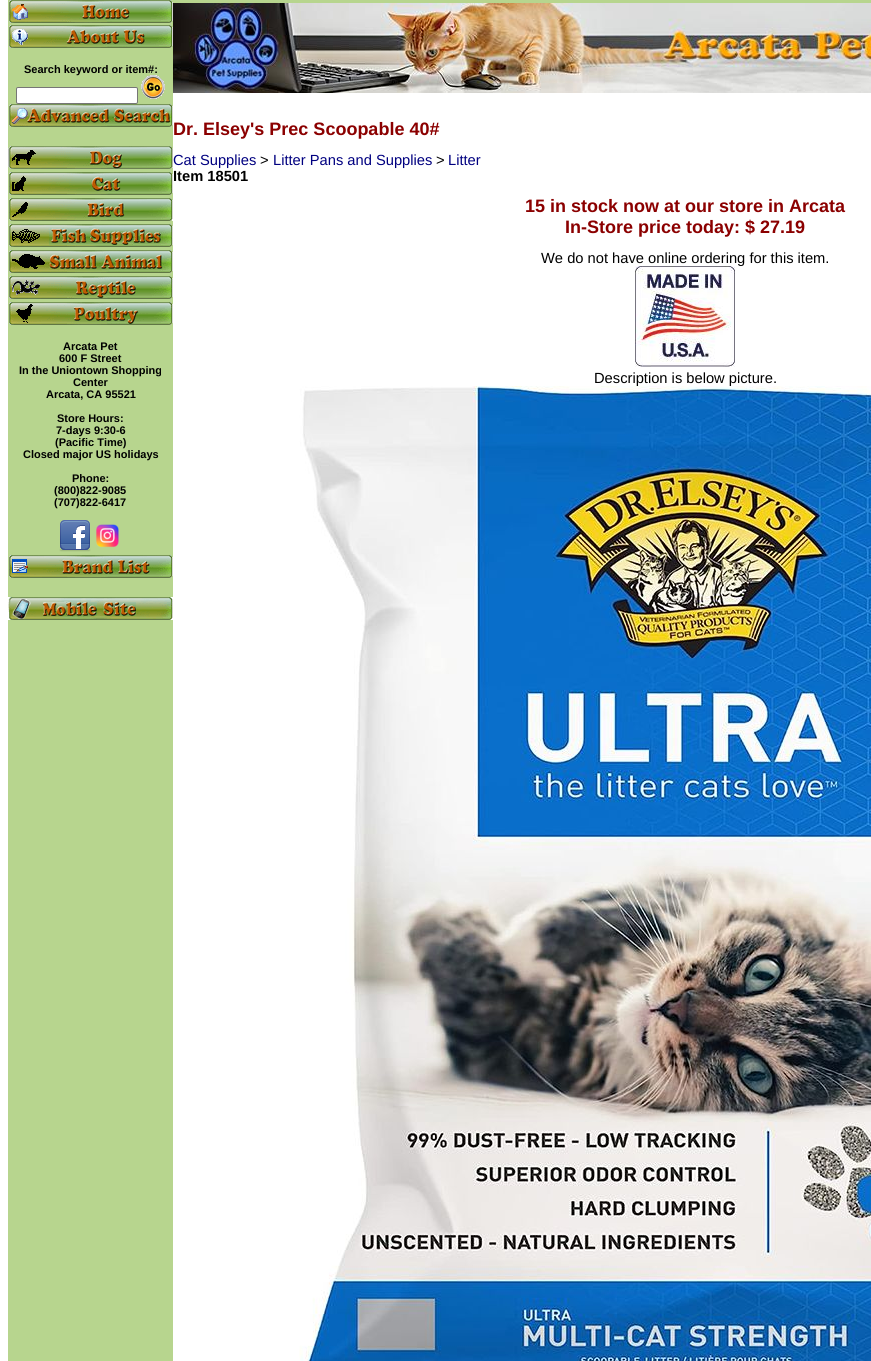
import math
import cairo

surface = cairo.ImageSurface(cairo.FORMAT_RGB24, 871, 1361)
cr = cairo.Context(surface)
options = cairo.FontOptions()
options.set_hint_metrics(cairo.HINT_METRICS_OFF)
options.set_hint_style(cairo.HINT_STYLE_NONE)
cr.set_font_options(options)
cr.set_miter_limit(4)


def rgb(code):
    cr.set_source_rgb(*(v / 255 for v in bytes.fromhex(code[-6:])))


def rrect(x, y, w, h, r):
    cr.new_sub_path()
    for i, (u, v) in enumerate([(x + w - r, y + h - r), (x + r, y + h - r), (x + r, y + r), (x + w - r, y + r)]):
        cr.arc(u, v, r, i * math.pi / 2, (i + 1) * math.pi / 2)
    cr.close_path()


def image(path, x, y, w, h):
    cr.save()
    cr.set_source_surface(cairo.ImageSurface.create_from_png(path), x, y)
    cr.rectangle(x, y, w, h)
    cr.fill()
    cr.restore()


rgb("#ffffff")
cr.paint()
rgb("#b7d58e")
cr.rectangle(8, 0, 165, 1361)
cr.fill()
cr.rectangle(172, 0, 699, 3)
cr.fill()
image("img/1.png", 9, 0, 164, 23)
image("img/2.png", 9, 25, 164, 23)
rgb("#ffffff")
rrect(16.5, 87.5, 121, 16, 1.5)
cr.fill_preserve()
rgb("#767676")
cr.set_line_width(1)
cr.stroke()
image("img/4.png", 9, 104, 164, 23)
image("img/5.png", 8, 146, 165, 23)
image("img/6.png", 9, 172, 164, 23)
image("img/7.png", 9, 198, 164, 23)
image("img/8.png", 9, 224, 164, 23)
image("img/9.png", 9, 250, 164, 23)
image("img/10.png", 9, 276, 164, 23)
image("img/11.png", 9, 302, 164, 23)
image("img/12.png", 59, 520, 32, 32)
image("img/13.png", 96, 524, 23, 24)
image("img/14.png", 9, 555, 164, 23)
image("img/15.png", 8, 597, 165, 23)
image("img/16.png", 173, 3, 698, 90)
cr.select_font_face("Liberation Sans", cairo.FONT_SLANT_NORMAL, cairo.FONT_WEIGHT_BOLD)
cr.set_font_size(11)
rgb("#000000")
cr.move_to(24, 73)
cr.show_text("Search keyword or item#:")
image("img/3.png", 141, 75, 24, 24)
for x, y, s in [
    (63, 350, "Arcata Pet"),
    (59, 362, "600 F Street"),
    (19, 374, "In the Uniontown Shopping"),
    (73, 386, "Center"),
    (46, 398, "Arcata, CA 95521"),
    (57, 422, "Store Hours:"),
    (56, 434, "7-days 9:30-6"),
    (55, 446, "(Pacific Time)"),
    (23, 458, "Closed major US holidays"),
    (72, 482, "Phone:"),
    (54, 494, "(800)822-9085"),
    (54, 506, "(707)822-6417"),
]:
    cr.move_to(x, y)
    cr.show_text(s)
cr.set_font_size(18)
rgb("#8b0000")
cr.move_to(173, 135)
cr.show_text("Dr. Elsey's Prec Scoopable 40#")
cr.select_font_face("Liberation Sans")
cr.set_font_size(14.7)
rgb("#000080")
cr.move_to(173, 165)
cr.show_text("Cat Supplies")
rgb("#000000")
cr.move_to(260, 165)
cr.show_text(">")
rgb("#000080")
cr.move_to(273, 165)
cr.show_text("Litter Pans and Supplies")
rgb("#000000")
cr.move_to(436, 165)
cr.show_text(">")
rgb("#000080")
cr.move_to(448, 165)
cr.show_text("Litter")
cr.select_font_face("Liberation Sans", cairo.FONT_SLANT_NORMAL, cairo.FONT_WEIGHT_BOLD)
rgb("#000000")
cr.move_to(173, 181)
cr.show_text("Item 18501")
cr.set_font_size(18)
rgb("#8b0000")
cr.move_to(525, 212)
cr.show_text("15 in stock now at our store in Arcata")
cr.move_to(565, 233)
cr.show_text("In-Store price today: $ 27.19")
cr.select_font_face("Liberation Sans")
cr.set_font_size(14.7)
rgb("#000000")
cr.move_to(541, 263)
cr.show_text("We do not have online ordering for this item.")
image("img/17.png", 635, 266, 100, 101)
cr.move_to(594, 383)
cr.show_text("Description is below picture.")
image("img/18.png", 299, 386, 572, 975)
surface.write_to_png("page.png")
